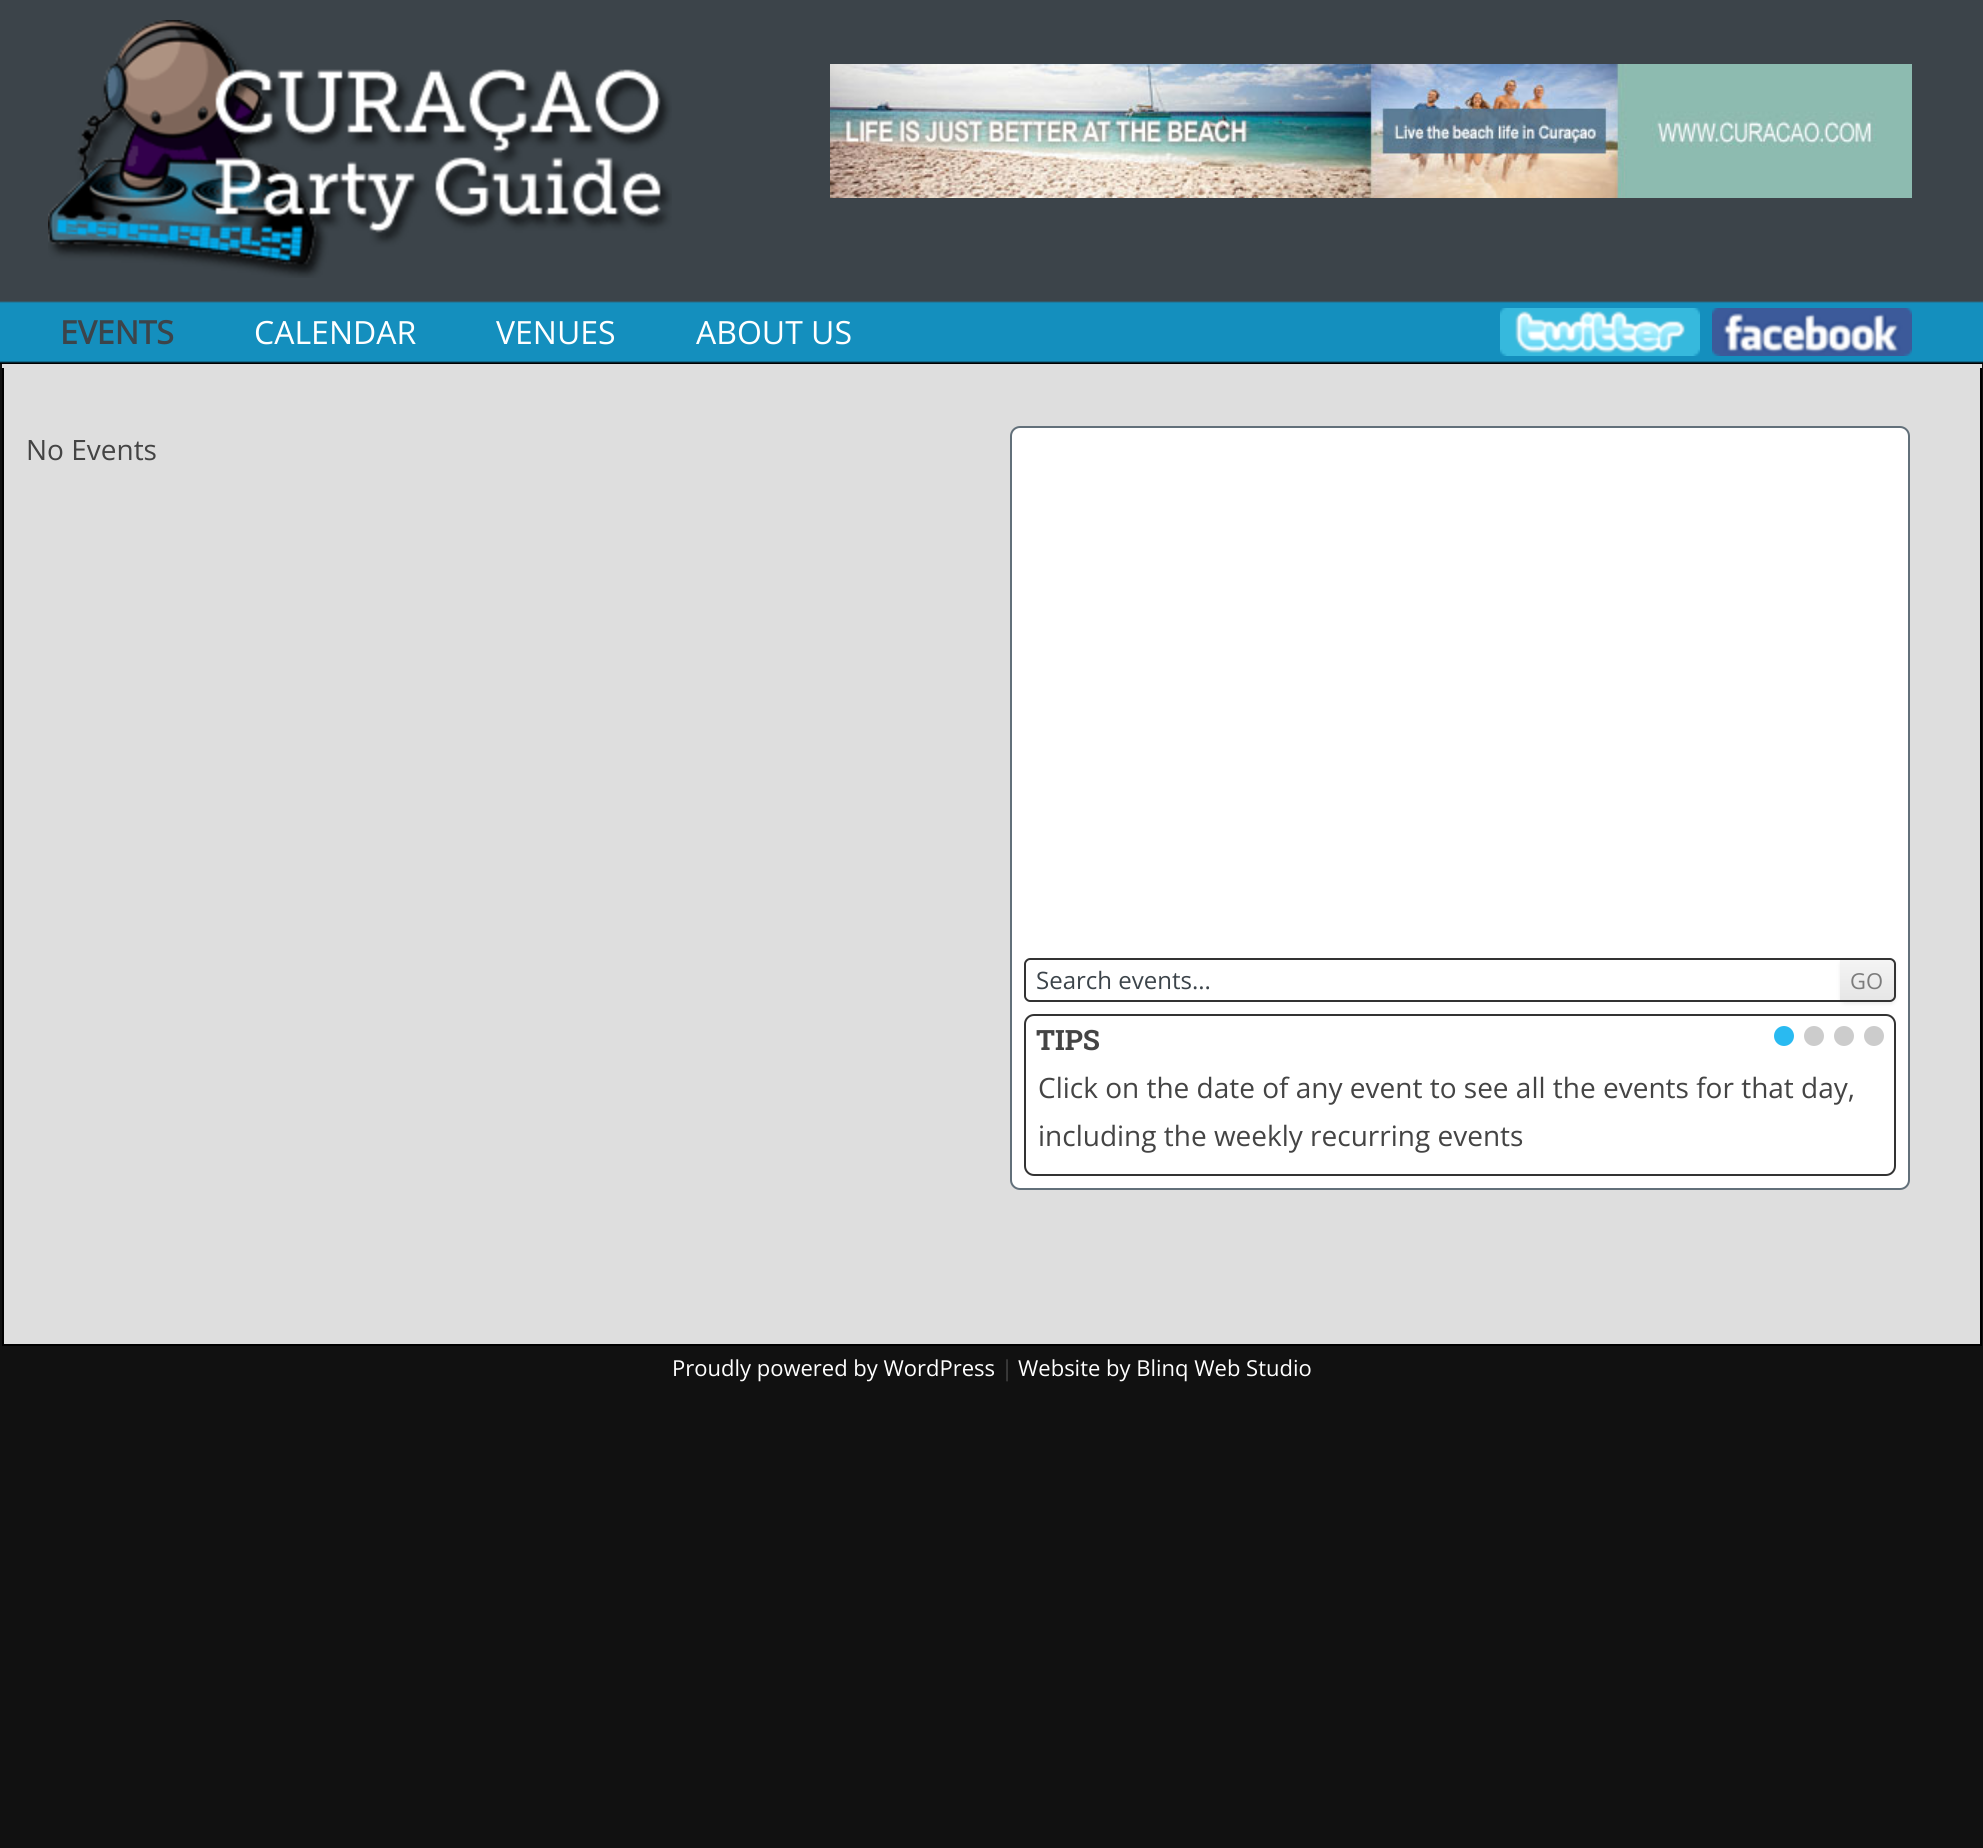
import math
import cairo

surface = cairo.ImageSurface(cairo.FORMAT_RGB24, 1983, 1848)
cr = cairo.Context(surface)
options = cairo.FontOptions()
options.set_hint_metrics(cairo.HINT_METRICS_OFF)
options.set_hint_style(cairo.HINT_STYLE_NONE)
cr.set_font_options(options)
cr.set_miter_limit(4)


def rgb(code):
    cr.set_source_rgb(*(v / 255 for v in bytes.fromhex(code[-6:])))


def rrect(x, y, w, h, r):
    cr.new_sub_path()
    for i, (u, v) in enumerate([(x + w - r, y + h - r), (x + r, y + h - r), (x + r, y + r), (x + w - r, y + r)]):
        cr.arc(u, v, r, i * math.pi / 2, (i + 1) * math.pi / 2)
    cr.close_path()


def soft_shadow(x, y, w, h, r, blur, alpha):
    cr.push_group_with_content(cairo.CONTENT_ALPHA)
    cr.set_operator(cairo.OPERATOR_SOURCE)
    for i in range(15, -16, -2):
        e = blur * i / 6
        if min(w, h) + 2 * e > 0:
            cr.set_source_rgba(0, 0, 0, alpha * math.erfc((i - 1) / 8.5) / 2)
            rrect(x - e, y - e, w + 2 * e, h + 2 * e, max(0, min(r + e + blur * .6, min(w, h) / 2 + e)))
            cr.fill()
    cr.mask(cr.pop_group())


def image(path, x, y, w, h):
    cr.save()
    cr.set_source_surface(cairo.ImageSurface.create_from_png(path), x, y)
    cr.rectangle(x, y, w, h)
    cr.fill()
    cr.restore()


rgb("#111111")
cr.paint()
image("img/1.png", 0, 0, 1983, 364)
rgb("#dedede")
cr.rectangle(2, 364, 1980, 980)
cr.fill()
image("img/2.png", 2, 0, 1980, 364)
image("img/3.png", 48, 20, 624, 258)
image("img/4.png", 830, 64, 1082, 134)
image("img/5.png", 1500, 308, 200, 48)
image("img/6.png", 1712, 308, 200, 48)
for x, y, w, h, color in [
    (1980, 368, 2, 978, "#000000"),
    (2, 1344, 1980, 2, "#000000"),
    (2, 368, 2, 978, "#000000"),
]:
    rgb(color)
    cr.rectangle(x, y, w, h)
    cr.fill()
rgb("#ffffff")
rrect(1011, 427, 898, 762, 9)
cr.fill_preserve()
rgb("#62707a")
cr.stroke()
rgb("#333333")
cr.set_fill_rule(cairo.FILL_RULE_EVEN_ODD)
cr.new_path()
cr.move_to(1030, 958)
cr.line_to(1840, 958)
cr.line_to(1840, 1002)
cr.line_to(1030, 1002)
cr.curve_to(1027, 1002, 1024, 999, 1024, 996)
cr.line_to(1024, 964)
cr.curve_to(1024, 961, 1027, 958, 1030, 958)
cr.close_path()
cr.move_to(1030, 960)
cr.line_to(1840, 960)
cr.line_to(1840, 1000)
cr.line_to(1030, 1000)
cr.curve_to(1028, 1000, 1026, 998, 1026, 996)
cr.line_to(1026, 964)
cr.curve_to(1026, 962, 1028, 960, 1030, 960)
cr.close_path()
cr.fill()
rgb("#404040")
soft_shadow(1840, 960, 56, 44, 6, 2, 0.1)
cr.save()
cr.set_fill_rule(cairo.FILL_RULE_WINDING)
cr.new_path()
cr.move_to(1840, 958)
cr.line_to(1890, 958)
cr.curve_to(1893.5, 958, 1896, 960.5, 1896, 964)
cr.line_to(1896, 996)
cr.curve_to(1896, 999.5, 1893.5, 1002, 1890, 1002)
cr.line_to(1840, 1002)
cr.close_path()
cr.clip()
gradient = cairo.LinearGradient(1867, 960, 1867, 1000)
gradient.add_color_stop_rgba(0, 0.957, 0.957, 0.957, 1)
gradient.add_color_stop_rgba(1, 0.902, 0.902, 0.902, 1)
cr.set_source(gradient)
cr.rectangle(1840, 960, 56, 40)
cr.fill()
cr.restore()
rgb("#333333")
cr.new_path()
cr.move_to(1840, 958)
cr.line_to(1890, 958)
cr.curve_to(1893, 958, 1896, 961, 1896, 964)
cr.line_to(1896, 996)
cr.curve_to(1896, 999, 1893, 1002, 1890, 1002)
cr.line_to(1840, 1002)
cr.close_path()
cr.move_to(1840, 960)
cr.line_to(1890, 960)
cr.curve_to(1892, 960, 1894, 962, 1894, 964)
cr.line_to(1894, 996)
cr.curve_to(1894, 998, 1892, 1000, 1890, 1000)
cr.line_to(1840, 1000)
cr.close_path()
cr.fill()
rrect(1025, 1015, 870, 160, 9)
cr.stroke()
rgb("#29baf1")
cr.arc(1784, 1036, 10, 0, 2 * math.pi)
cr.fill()
rgb("#cccccc")
cr.arc(1814, 1036, 10, 0, 2 * math.pi)
cr.fill()
cr.arc(1844, 1036, 10, 0, 2 * math.pi)
cr.fill()
cr.arc(1874, 1036, 10, 0, 2 * math.pi)
cr.fill()
cr.select_font_face("Open Sans", cairo.FONT_SLANT_NORMAL, cairo.FONT_WEIGHT_BOLD)
cr.set_font_size(32)
rgb("#3c444a")
cr.move_to(60, 344)
cr.show_text("EVENTS")
cr.select_font_face("Open Sans")
rgb("#ffffff")
for x, y, s in [
    (254, 344, "CALENDAR"),
    (496, 344, "VENUES"),
    (696, 344, "ABOUT US"),
]:
    cr.move_to(x, y)
    cr.show_text(s)
cr.set_font_size(28)
rgb("#444444")
cr.move_to(26, 460)
cr.show_text("No Events")
cr.set_font_size(24)
rgb("#3c444a")
cr.move_to(1036, 989)
cr.show_text("Search events...")
cr.set_font_size(22)
rgb("#7c7c7c")
cr.move_to(1850, 989)
cr.show_text("GO")
cr.select_font_face("Roboto Slab", cairo.FONT_SLANT_NORMAL, cairo.FONT_WEIGHT_BOLD)
cr.set_font_size(28)
rgb("#444444")
cr.move_to(1036, 1050)
cr.show_text("TIPS")
cr.select_font_face("Open Sans")
cr.move_to(1038, 1098)
cr.show_text("Click on the date of any event to see all the events for that day,")
cr.move_to(1038, 1146)
cr.show_text("including the weekly recurring events")
cr.set_font_size(22)
rgb("#ffffff")
cr.move_to(672, 1376)
cr.show_text("Proudly powered by WordPress")
rgb("#444444")
cr.move_to(1001, 1376)
cr.show_text("|")
rgb("#ffffff")
cr.move_to(1018, 1376)
cr.show_text("Website by Blinq Web Studio")
surface.write_to_png("page.png")
